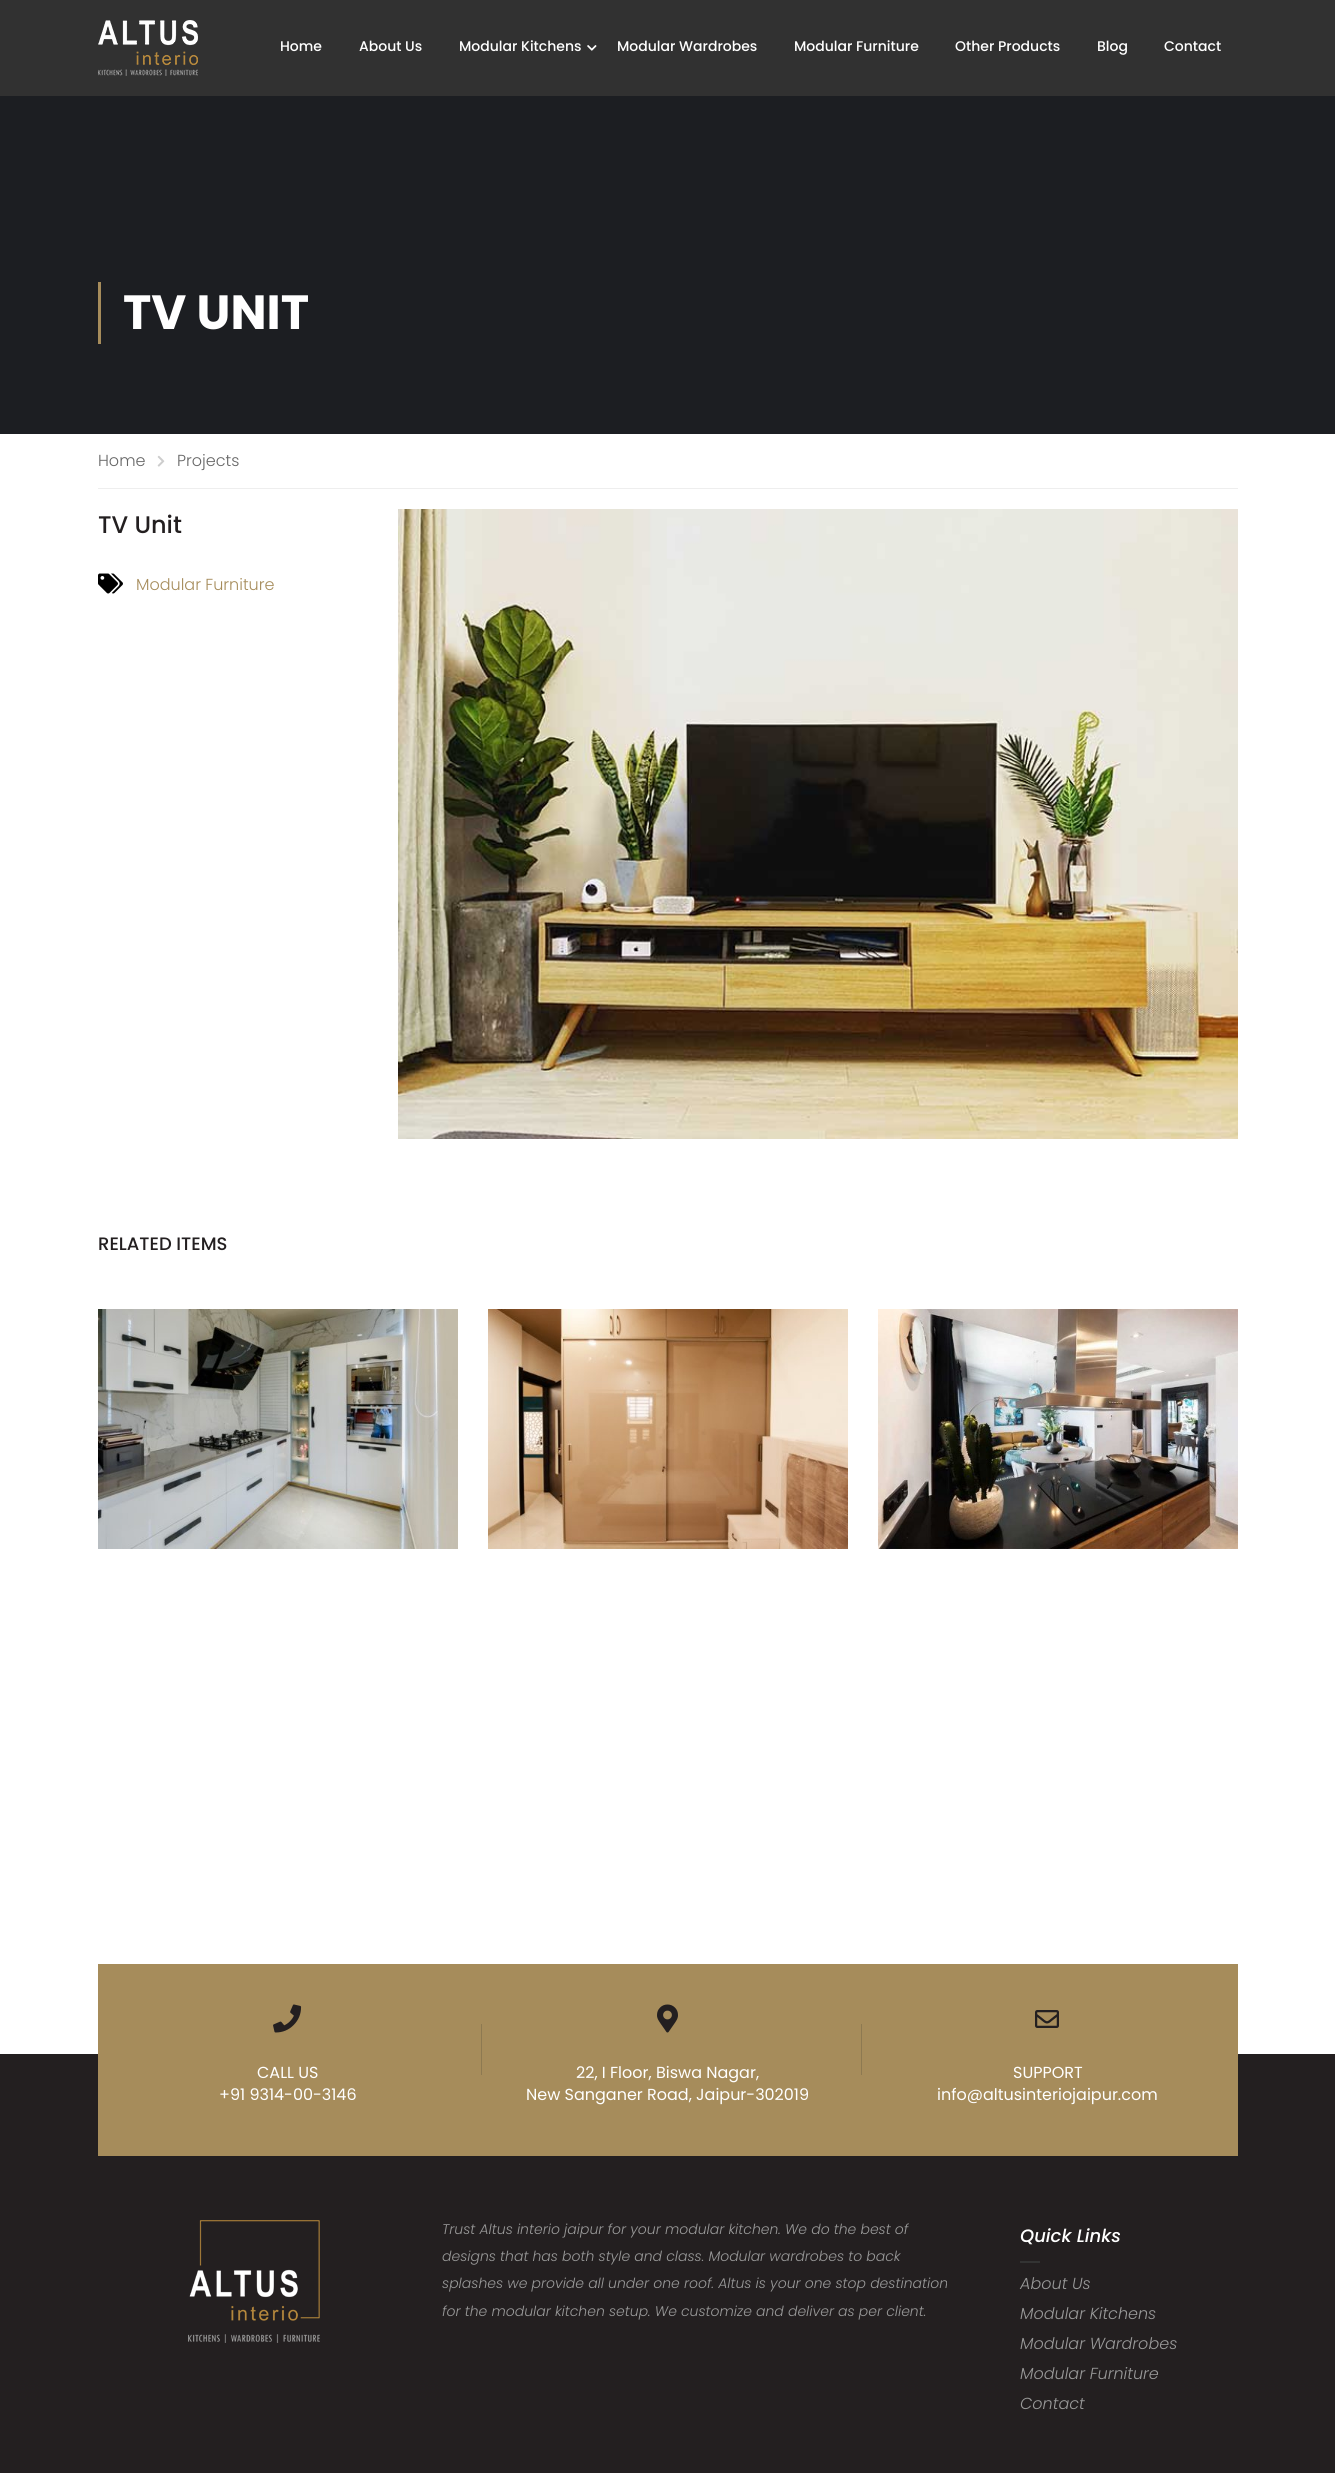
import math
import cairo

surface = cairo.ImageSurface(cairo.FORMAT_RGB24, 1335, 2473)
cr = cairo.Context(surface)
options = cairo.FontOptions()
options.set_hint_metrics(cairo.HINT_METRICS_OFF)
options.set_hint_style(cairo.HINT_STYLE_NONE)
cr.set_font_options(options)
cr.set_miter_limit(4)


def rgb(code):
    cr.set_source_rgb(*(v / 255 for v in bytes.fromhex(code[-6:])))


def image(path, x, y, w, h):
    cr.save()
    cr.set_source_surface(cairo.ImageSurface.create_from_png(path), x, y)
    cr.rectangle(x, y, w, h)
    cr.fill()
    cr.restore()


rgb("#ffffff")
cr.paint()
rgb("#313131")
cr.rectangle(0, 0, 1335, 96)
cr.fill()
image("img/1.png", 98, 20, 100, 56)
image("img/2.png", 587, 45, 10, 6)
for x, y, w, h, color in [
    (0, 96, 1335, 338, "#1c1e22"),
    (98, 282, 3, 62, "#a68c5b"),
    (98, 488, 1140, 1, "#eeeeee"),
]:
    rgb(color)
    cr.rectangle(x, y, w, h)
    cr.fill()
image("img/3.png", 157, 455, 8, 12)
image("img/4.png", 98, 573, 25, 21)
image("img/5.png", 398, 509, 840, 630)
image("img/6.png", 98, 1309, 360, 240)
image("img/7.png", 488, 1309, 360, 240)
image("img/8.png", 878, 1309, 360, 240)
for x, y, w, h, color in [
    (0, 2054, 1335, 419, "#231f20"),
    (98, 1964, 1140, 192, "#a68c5b"),
    (481, 2024, 1, 51, "#8d7951"),
]:
    rgb(color)
    cr.rectangle(x, y, w, h)
    cr.fill()
image("img/9.png", 273, 2004, 29, 29)
cr.rectangle(861, 2024, 1, 51)
cr.fill()
image("img/10.png", 657, 2004, 21, 29)
image("img/11.png", 1035, 2010, 24, 18)
image("img/12.png", 188, 2220, 132, 123)
rgb("#333333")
cr.rectangle(1020, 2261, 20, 2)
cr.fill()
cr.select_font_face("Poppins Medium")
cr.set_font_size(14)
rgb("#ffffff")
for x, y, s in [
    (280, 51, "Home"),
    (359, 51, "About Us"),
    (459, 51, "Modular Kitchens"),
    (617, 51, "Modular Wardrobes"),
    (794, 51, "Modular Furniture"),
    (955, 51, "Other Products"),
    (1097, 51, "Blog"),
    (1164, 51, "Contact"),
]:
    cr.move_to(x, y)
    cr.show_text(s)
cr.select_font_face("Poppins", cairo.FONT_SLANT_NORMAL, cairo.FONT_WEIGHT_BOLD)
cr.set_font_size(48)
cr.move_to(123, 329)
cr.show_text("TV UNIT")
cr.select_font_face("Poppins Light")
cr.set_font_size(16)
rgb("#666666")
cr.move_to(98, 466)
cr.show_text("Home")
cr.move_to(177, 466)
cr.show_text("Projects")
cr.select_font_face("Poppins Medium")
cr.set_font_size(24)
rgb("#231f20")
cr.move_to(98, 533)
cr.show_text("TV Unit")
cr.select_font_face("Poppins Light")
cr.set_font_size(16)
rgb("#a68c5b")
cr.move_to(136, 590)
cr.show_text("Modular Furniture")
cr.select_font_face("Poppins Medium")
cr.set_font_size(18)
rgb("#231f20")
cr.move_to(98, 1250)
cr.show_text("RELATED ITEMS")
cr.select_font_face("Poppins")
cr.set_font_size(16)
rgb("#ffffff")
for x, y, s in [
    (257, 2078, "CALL US"),
    (219, 2100, "+91 9314-00-3146"),
    (576, 2078, "22, I Floor, Biswa Nagar,"),
    (526, 2100, "New Sanganer Road, Jaipur-302019"),
    (1013, 2078, "SUPPORT"),
    (937, 2100, "info@altusinteriojaipur.com"),
]:
    cr.move_to(x, y)
    cr.show_text(s)
cr.select_font_face("Poppins Light", cairo.FONT_SLANT_ITALIC)
cr.set_font_size(14)
rgb("#999999")
for x, y, s in [
    (442, 2234, "Trust Altus interio jaipur for your modular kitchen. We do the best of"),
    (442, 2261, "designs that has both style and class. Modular wardrobes to back"),
    (442, 2288, "splashes we provide all under one roof. Altus is your one stop destination"),
    (442, 2316, "for the modular kitchen setup. We customize and deliver as per client."),
]:
    cr.move_to(x, y)
    cr.show_text(s)
cr.select_font_face("Poppins Medium", cairo.FONT_SLANT_ITALIC)
cr.set_font_size(18)
rgb("#ffffff")
cr.move_to(1020, 2242)
cr.show_text("Quick Links")
cr.select_font_face("Poppins Light", cairo.FONT_SLANT_ITALIC)
cr.set_font_size(16)
rgb("#999999")
for x, y, s in [
    (1020, 2289, "About Us"),
    (1020, 2319, "Modular Kitchens"),
    (1020, 2349, "Modular Wardrobes"),
    (1020, 2379, "Modular Furniture"),
    (1020, 2409, "Contact"),
]:
    cr.move_to(x, y)
    cr.show_text(s)
surface.write_to_png("page.png")
